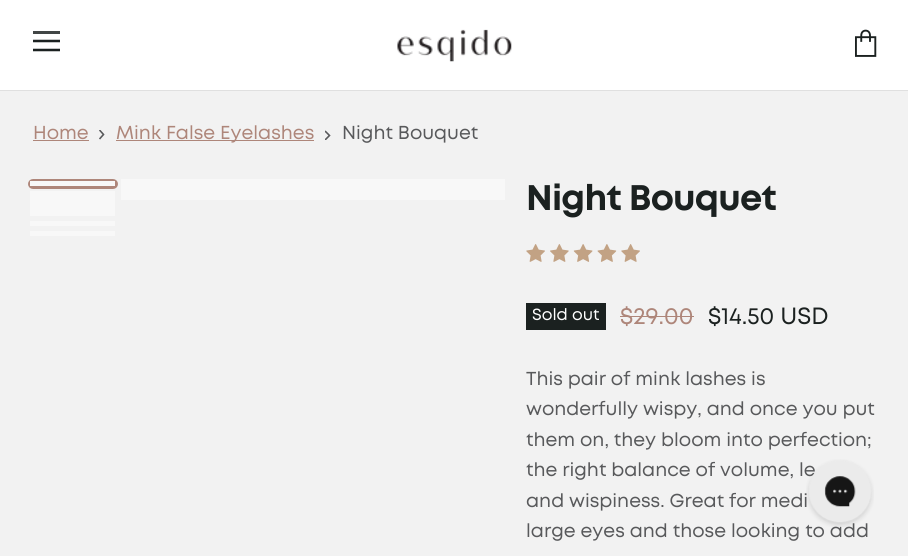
import math
import cairo

surface = cairo.ImageSurface(cairo.FORMAT_RGB24, 908, 556)
cr = cairo.Context(surface)
options = cairo.FontOptions()
options.set_hint_metrics(cairo.HINT_METRICS_OFF)
options.set_hint_style(cairo.HINT_STYLE_NONE)
cr.set_font_options(options)
cr.set_miter_limit(4)


def rgb(code):
    cr.set_source_rgb(*(v / 255 for v in bytes.fromhex(code[-6:])))


def tracked(x, y, s, letter, word):
    cr.move_to(x, y)
    for ch in s:
        cr.show_text(ch)
        cr.rel_move_to(letter + word * (ch == ' '), 0)


def rrect(x, y, w, h, r):
    cr.new_sub_path()
    for i, (u, v) in enumerate([(x + w - r, y + h - r), (x + r, y + h - r), (x + r, y + r), (x + w - r, y + r)]):
        cr.arc(u, v, r, i * math.pi / 2, (i + 1) * math.pi / 2)
    cr.close_path()


def image(path, x, y, w, h):
    cr.save()
    cr.set_source_surface(cairo.ImageSurface.create_from_png(path), x, y)
    cr.rectangle(x, y, w, h)
    cr.fill()
    cr.restore()


rgb("#ffffff")
cr.paint()
rgb("#e0e0e0")
cr.rectangle(0, 90, 908, 1)
cr.fill()
rgb("#414645")
cr.rectangle(33, 31, 27, 3)
cr.fill()
cr.save()
cr.rectangle(33, 30, 27, 23)
cr.clip()
cr.new_path()
cr.move_to(59, 41)
cr.line_to(34, 41)
cr.move_to(59, 50)
cr.line_to(34, 50)
rgb("#1b2120")
cr.set_line_width(2.5)
cr.set_line_cap(cairo.LINE_CAP_SQUARE)
cr.set_line_join(cairo.LINE_JOIN_ROUND)
cr.stroke()
cr.restore()
image("img/1.png", 397, 29, 115, 33)
image("img/2.png", 855, 29, 22, 28)
rgb("#f2f2f2")
cr.rectangle(0, 91, 908, 465)
cr.fill()
rgb("#ae867a")
cr.rectangle(33, 140, 56, 1)
cr.fill()
cr.save()
cr.new_path()
cr.move_to(99, 140)
cr.line_to(99, 130)
cr.line_to(105.5, 130)
cr.line_to(105.5, 140)
cr.close_path()
cr.clip()
cr.new_path()
cr.move_to(99.5, 139)
cr.line_to(103.5, 134.5)
cr.line_to(99.5, 130)
rgb("#58595b")
cr.set_line_width(1.6)
cr.stroke()
cr.restore()
cr.rectangle(116, 140, 198, 1)
cr.fill()
cr.save()
cr.new_path()
cr.move_to(325, 140)
cr.line_to(325, 130)
cr.line_to(331, 130)
cr.line_to(331, 140)
cr.close_path()
cr.clip()
cr.new_path()
cr.move_to(325, 140)
cr.line_to(329.5, 135.5)
cr.line_to(325, 131)
rgb("#58595b")
cr.set_line_width(1.6)
cr.stroke()
cr.restore()
rrect(29.5, 180.5, 87, 7, 3.5)
cr.set_line_width(3)
cr.stroke()
for x, y, w, h, color in [
    (30, 181, 85, 5, "#f8f8f8"),
    (30, 191, 85, 25, "#f8f8f8"),
    (30, 221, 85, 5, "#f8f8f8"),
    (30, 231, 85, 5, "#f8f8f8"),
    (121, 179, 384, 21, "#f8f8f8"),
]:
    rgb(color)
    cr.rectangle(x, y, w, h)
    cr.fill()
image("img/3.png", 526, 244, 19, 18)
image("img/4.png", 550, 244, 19, 18)
image("img/5.png", 573, 244, 20, 18)
image("img/6.png", 597, 244, 20, 18)
image("img/3.png", 621, 244, 19, 18)
rgb("#1b2120")
cr.rectangle(526, 303, 80, 27)
cr.fill()
rgb("#ae867a")
cr.rectangle(620, 316, 74, 1)
cr.fill()
cr.select_font_face("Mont")
cr.set_font_size(18.75)
cr.move_to(33, 139)
cr.show_text("Home")
cr.move_to(116, 139)
cr.show_text("Mink False Eyelashes")
rgb("#58595b")
cr.move_to(342, 139)
cr.show_text("Night Bouquet")
cr.select_font_face("Mont", cairo.FONT_SLANT_NORMAL, cairo.FONT_WEIGHT_BOLD)
cr.set_font_size(35.5)
rgb("#1b2120")
tracked(526, 210, "Night Bouquet", -0.75, 0)
cr.select_font_face("Mont")
cr.set_font_size(16.25)
rgb("#ffffff")
cr.move_to(532, 320)
cr.show_text("Sold out")
cr.set_font_size(23.5)
rgb("#ae867a")
cr.move_to(620, 324)
cr.show_text("$29.00")
rgb("#1b2120")
cr.move_to(708, 324)
cr.show_text("$14.50 USD")
cr.set_font_size(18.75)
rgb("#58595b")
for x, y, s in [
    (526, 385, "This pair of mink lashes is"),
    (526, 415, "wonderfully wispy, and once you put"),
    (526, 446, "them on, they bloom into perfection;"),
    (526, 476, "the right balance of volume, le"),
    (526, 507, "and wispiness. Great for medi"),
    (526, 537, "large eyes and those looking to add"),
]:
    cr.move_to(x, y)
    cr.show_text(s)
image("img/7.png", 806, 459, 68, 68)
surface.write_to_png("page.png")
